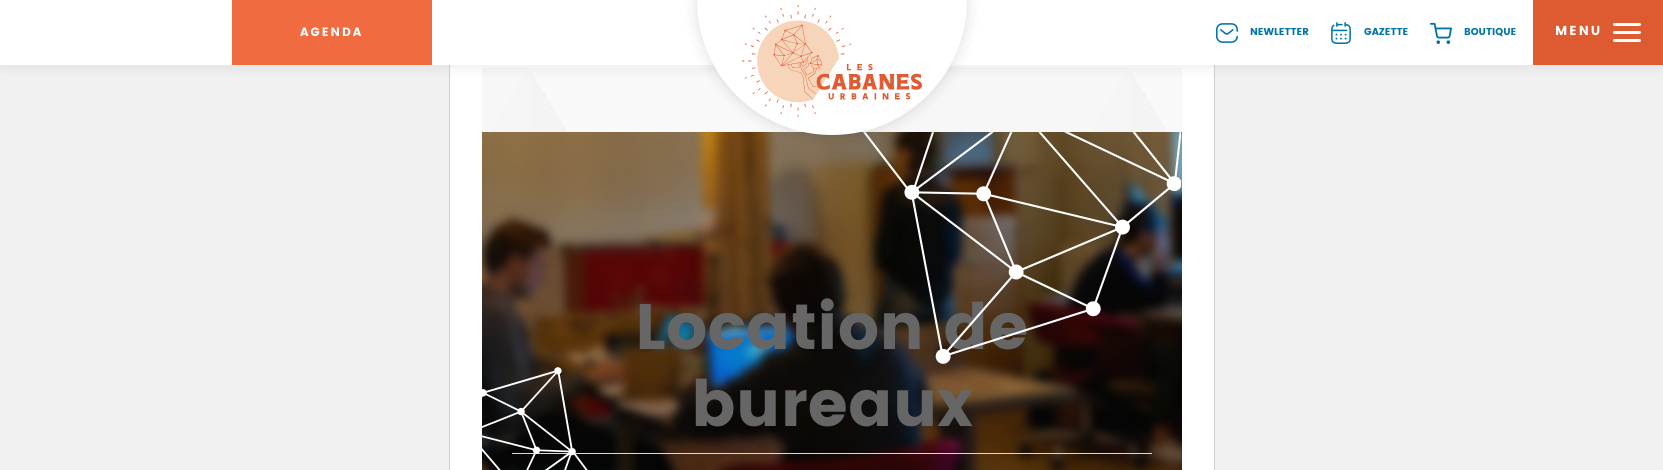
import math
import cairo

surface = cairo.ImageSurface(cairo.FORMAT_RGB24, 1663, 470)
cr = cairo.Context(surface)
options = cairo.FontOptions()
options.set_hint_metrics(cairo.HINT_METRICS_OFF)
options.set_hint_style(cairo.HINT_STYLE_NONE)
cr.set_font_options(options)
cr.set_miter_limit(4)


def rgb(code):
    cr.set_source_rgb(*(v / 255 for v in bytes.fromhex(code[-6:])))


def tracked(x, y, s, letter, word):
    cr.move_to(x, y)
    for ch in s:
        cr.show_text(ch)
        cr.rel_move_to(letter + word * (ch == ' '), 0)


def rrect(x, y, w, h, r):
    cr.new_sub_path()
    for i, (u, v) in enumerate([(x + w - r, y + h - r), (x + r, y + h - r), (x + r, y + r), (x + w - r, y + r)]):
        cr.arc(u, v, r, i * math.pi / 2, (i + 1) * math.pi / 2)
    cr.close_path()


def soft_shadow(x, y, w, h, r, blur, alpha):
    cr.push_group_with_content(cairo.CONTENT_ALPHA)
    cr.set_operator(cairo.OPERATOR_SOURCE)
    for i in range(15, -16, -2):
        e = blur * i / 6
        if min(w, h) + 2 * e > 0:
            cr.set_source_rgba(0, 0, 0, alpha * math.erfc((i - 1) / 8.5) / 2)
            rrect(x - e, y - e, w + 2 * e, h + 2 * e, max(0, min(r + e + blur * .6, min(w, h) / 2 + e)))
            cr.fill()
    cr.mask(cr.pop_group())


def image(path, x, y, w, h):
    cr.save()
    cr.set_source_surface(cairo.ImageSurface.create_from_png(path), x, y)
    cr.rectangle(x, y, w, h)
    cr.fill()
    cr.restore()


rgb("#f1f1f1")
cr.paint()
rgb("#ffffff")
cr.rectangle(450, 65, 764, 405)
cr.fill()
cr.rectangle(449.5, 50.5, 765, 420)
rgb("#ccd0d4")
cr.set_line_width(1)
cr.stroke()
image("img/1.png", 482, 67, 700, 66)
rgb("#111210")
soft_shadow(0, 1, 1663, 65, 0, 7, 0.1)
rgb("#ffffff")
cr.rectangle(0, 0, 1533, 65)
cr.fill()
rgb("#f16b41")
cr.rectangle(232, 0, 200, 65)
cr.fill()
image("img/3.png", 1216, 23, 22, 20)
image("img/4.png", 1331, 22, 20, 22)
image("img/5.png", 1430, 22, 22, 22)
rgb("#de5a31")
cr.rectangle(1533, 0, 130, 65)
cr.fill()
rgb("#ffffff")
rrect(1613, 31, 28, 3, 1.5)
cr.fill()
rrect(1613, 23, 28, 3, 1.5)
cr.fill()
rrect(1613, 39, 28, 3, 1.5)
cr.fill()
image("img/6.png", 482, 132, 700, 338)
cr.save()
cr.rectangle(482, 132, 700, 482)
cr.clip()
rgb("#111210")
soft_shadow(472, 122, 720, 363, 0, 5, 0.2)
cr.restore()
rgb("#dadada")
cr.rectangle(512, 453, 640, 1)
cr.fill()
image("img/8.png", 482, 367, 106, 103)
cr.select_font_face("Poppins", cairo.FONT_SLANT_NORMAL, cairo.FONT_WEIGHT_BOLD)
cr.set_font_size(12)
rgb("#ffffff")
tracked(300, 36, "AGENDA", 2, 0)
cr.set_font_size(10)
rgb("#0073aa")
for x, y, s in [
    (1250, 35, "NEWLETTER"),
    (1364, 35, "GAZETTE"),
    (1464, 35, "BOUTIQUE"),
]:
    cr.move_to(x, y)
    cr.show_text(s)
cr.set_font_size(13)
rgb("#ffffff")
tracked(1555, 35, "MENU", 2, 0)
cr.set_font_size(64)
rgb("#666666")
cr.move_to(635, 349)
cr.show_text("Location de")
image("img/7.png", 863, 132, 318, 232)
rgb("#111210")
soft_shadow(697, -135, 270, 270, 135, 7.5, 0.15)
rgb("#ffffff")
cr.arc(832, 0, 135, 0, 2 * math.pi)
cr.fill()
image("img/2.png", 742, 5, 180, 112)
rgb("#666666")
cr.move_to(691, 426)
cr.show_text("bureaux")
surface.write_to_png("page.png")
